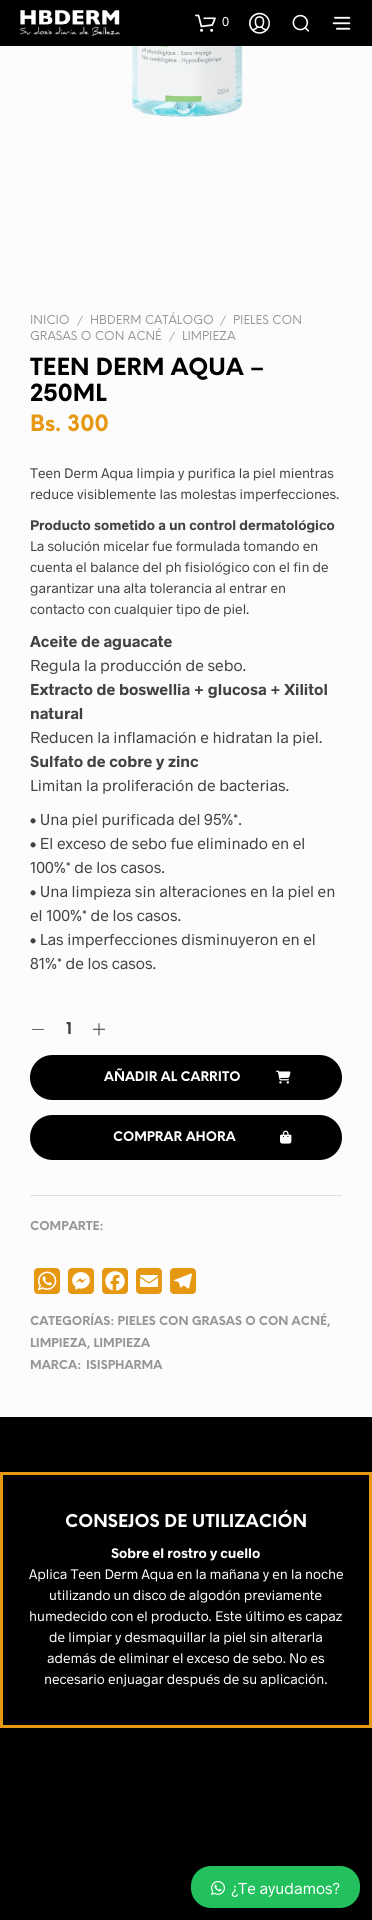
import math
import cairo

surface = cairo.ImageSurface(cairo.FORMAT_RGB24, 372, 1920)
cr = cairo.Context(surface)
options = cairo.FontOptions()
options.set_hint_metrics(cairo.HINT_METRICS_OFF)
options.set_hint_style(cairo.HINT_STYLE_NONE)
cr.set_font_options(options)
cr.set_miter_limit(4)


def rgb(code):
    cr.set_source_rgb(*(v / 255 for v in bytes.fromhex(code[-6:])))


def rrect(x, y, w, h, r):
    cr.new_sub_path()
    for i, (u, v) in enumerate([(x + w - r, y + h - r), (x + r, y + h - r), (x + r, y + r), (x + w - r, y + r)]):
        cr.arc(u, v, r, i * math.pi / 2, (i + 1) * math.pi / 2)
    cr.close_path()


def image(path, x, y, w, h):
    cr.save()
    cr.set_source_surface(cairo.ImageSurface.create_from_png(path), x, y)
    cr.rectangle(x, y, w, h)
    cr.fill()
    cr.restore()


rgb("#fcfcfc")
cr.paint()
rgb("#000000")
cr.rectangle(0, 0, 372, 46)
cr.fill()
image("img/1.png", 20, 10, 100, 26)
image("img/2.png", 195, 14, 21, 18)
image("img/3.png", 249, 12, 21, 22)
image("img/4.png", 292, 14, 17, 18)
image("img/5.png", 332, 16, 19, 14)
image("img/6.png", 131, 46, 112, 71)
rgb("#676767")
cr.rectangle(32, 1029, 12, 1)
cr.fill()
image("img/7.png", 93, 1023, 12, 13)
rgb("#000000")
rrect(30, 1055, 312, 45, 22.5)
cr.fill()
image("img/8.png", 276, 1070, 15, 14)
rrect(30, 1115, 312, 45, 22.5)
cr.fill()
image("img/9.png", 280, 1130, 12, 14)
rgb("#e0e0e0")
cr.rectangle(30, 1195, 312, 1)
cr.fill()
rgb("#e69813")
rrect(34, 1268, 26, 26, 4)
cr.fill()
image("img/10.png", 37, 1271, 20, 20)
rrect(68, 1268, 26, 26, 4)
cr.fill()
image("img/11.png", 72, 1272, 18, 18)
rrect(102, 1268, 26, 26, 4)
cr.fill()
image("img/12.png", 105, 1271, 20, 20)
rrect(136, 1268, 26, 26, 4)
cr.fill()
image("img/13.png", 140, 1275, 18, 12)
rrect(170, 1268, 26, 26, 4)
cr.fill()
image("img/14.png", 174, 1273, 18, 16)
rgb("#000000")
cr.rectangle(0, 1417, 372, 503)
cr.fill()
cr.rectangle(1.5, 1473.5, 369, 253)
rgb("#e69813")
cr.set_line_width(3)
cr.stroke()
rgb("#22c15e")
rrect(191, 1866, 169, 42, 20)
cr.fill()
image("img/15.png", 211, 1881, 14, 14)
cr.select_font_face("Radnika")
cr.set_font_size(13)
rgb("#ffffff")
cr.move_to(222, 26)
cr.show_text("0")
cr.select_font_face("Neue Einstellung")
cr.set_font_size(12)
rgb("#969696")
cr.move_to(30, 324)
cr.show_text("INICIO")
cr.set_font_size(10)
cr.move_to(77, 324)
cr.show_text("/")
cr.set_font_size(12)
cr.move_to(90, 324)
cr.show_text("HBDERM CATÁLOGO")
cr.set_font_size(10)
cr.move_to(220, 324)
cr.show_text("/")
cr.set_font_size(12)
cr.move_to(233, 324)
cr.show_text("PIELES CON")
cr.move_to(30, 340)
cr.show_text("GRASAS O CON ACNÉ")
cr.set_font_size(10)
cr.move_to(169, 340)
cr.show_text("/")
cr.set_font_size(12)
cr.move_to(182, 340)
cr.show_text("LIMPIEZA")
cr.select_font_face("Neue Einstellung", cairo.FONT_SLANT_NORMAL, cairo.FONT_WEIGHT_BOLD)
cr.set_font_size(23.1)
rgb("#000000")
cr.move_to(30, 375)
cr.show_text("TEEN DERM AQUA –")
cr.move_to(30, 401)
cr.show_text("250ML")
cr.set_font_size(22)
rgb("#e69813")
cr.move_to(30, 431)
cr.show_text("Bs. 300")
cr.select_font_face("Radnika")
cr.set_font_size(14)
rgb("#424242")
cr.move_to(30, 478)
cr.show_text("Teen Derm Aqua limpia y purifica la piel mientras")
cr.move_to(30, 499)
cr.show_text("reduce visiblemente las molestas imperfecciones.")
cr.select_font_face("Radnika", cairo.FONT_SLANT_NORMAL, cairo.FONT_WEIGHT_BOLD)
cr.move_to(30, 530)
cr.show_text("Producto sometido a un control dermatológico")
cr.select_font_face("Radnika")
for x, y, s in [
    (30, 551, "La solución micelar fue formulada tomando en"),
    (30, 572, "cuenta el balance del ph fisiológico con el fin de"),
    (30, 593, "garantizar una alta tolerancia al entrar en"),
    (30, 614, "contacto con cualquier tipo de piel."),
]:
    cr.move_to(x, y)
    cr.show_text(s)
cr.select_font_face("Radnika", cairo.FONT_SLANT_NORMAL, cairo.FONT_WEIGHT_BOLD)
cr.set_font_size(16)
cr.move_to(30, 647)
cr.show_text("Aceite de aguacate")
cr.select_font_face("Radnika")
cr.move_to(30, 671)
cr.show_text("Regula la producción de sebo.")
cr.select_font_face("Radnika", cairo.FONT_SLANT_NORMAL, cairo.FONT_WEIGHT_BOLD)
cr.move_to(30, 695)
cr.show_text("Extracto de boswellia + glucosa + Xilitol")
cr.move_to(30, 719)
cr.show_text("natural")
cr.select_font_face("Radnika")
cr.move_to(30, 743)
cr.show_text("Reducen la inflamación e hidratan la piel.")
cr.select_font_face("Radnika", cairo.FONT_SLANT_NORMAL, cairo.FONT_WEIGHT_BOLD)
cr.move_to(30, 767)
cr.show_text("Sulfato de cobre y zinc")
cr.select_font_face("Radnika")
for x, y, s in [
    (30, 791, "Limitan la proliferación de bacterias."),
    (30, 825, "• Una piel purificada del 95%*."),
    (30, 849, "• El exceso de sebo fue eliminado en el"),
    (30, 873, "100%* de los casos."),
    (30, 897, "• Una limpieza sin alteraciones en la piel en"),
    (30, 921, "el 100%* de los casos."),
    (30, 945, "• Las imperfecciones disminuyeron en el"),
    (30, 969, "81%* de los casos."),
]:
    cr.move_to(x, y)
    cr.show_text(s)
cr.select_font_face("Neue Einstellung", cairo.FONT_SLANT_NORMAL, cairo.FONT_WEIGHT_BOLD)
cr.move_to(66, 1034)
cr.show_text("1")
cr.set_font_size(13)
rgb("#ffffff")
cr.move_to(104, 1081)
cr.show_text("AÑADIR AL CARRITO")
cr.move_to(113, 1141)
cr.show_text("COMPRAR AHORA")
cr.set_font_size(12)
rgb("#969696")
for x, y, s in [
    (30, 1230, "COMPARTE:"),
    (30, 1325, "CATEGORÍAS: PIELES CON GRASAS O CON ACNÉ,"),
    (30, 1347, "LIMPIEZA, LIMPIEZA"),
    (30, 1369, "MARCA:"),
    (86, 1369, "ISISPHARMA"),
]:
    cr.move_to(x, y)
    cr.show_text(s)
cr.set_font_size(17.3)
rgb("#ffffff")
cr.move_to(65, 1527)
cr.show_text("CONSEJOS DE UTILIZACIÓN")
cr.select_font_face("Radnika", cairo.FONT_SLANT_NORMAL, cairo.FONT_WEIGHT_BOLD)
cr.set_font_size(14)
cr.move_to(111, 1558)
cr.show_text("Sobre el rostro y cuello")
cr.select_font_face("Radnika")
for x, y, s in [
    (29, 1579, "Aplica Teen Derm Aqua en la mañana y en la noche"),
    (49, 1600, "utilizando un disco de algodón previamente"),
    (29, 1621, "humedecido con el producto. Este último es capaz"),
    (49, 1642, "de limpiar y desmaquillar la piel sin alterarla"),
    (47, 1663, "además de eliminar el exceso de sebo. No es"),
    (44, 1684, "necesario enjuagar después de su aplicación."),
]:
    cr.move_to(x, y)
    cr.show_text(s)
cr.set_font_size(16)
cr.move_to(231, 1894)
cr.show_text("¿Te ayudamos?")
surface.write_to_png("page.png")
